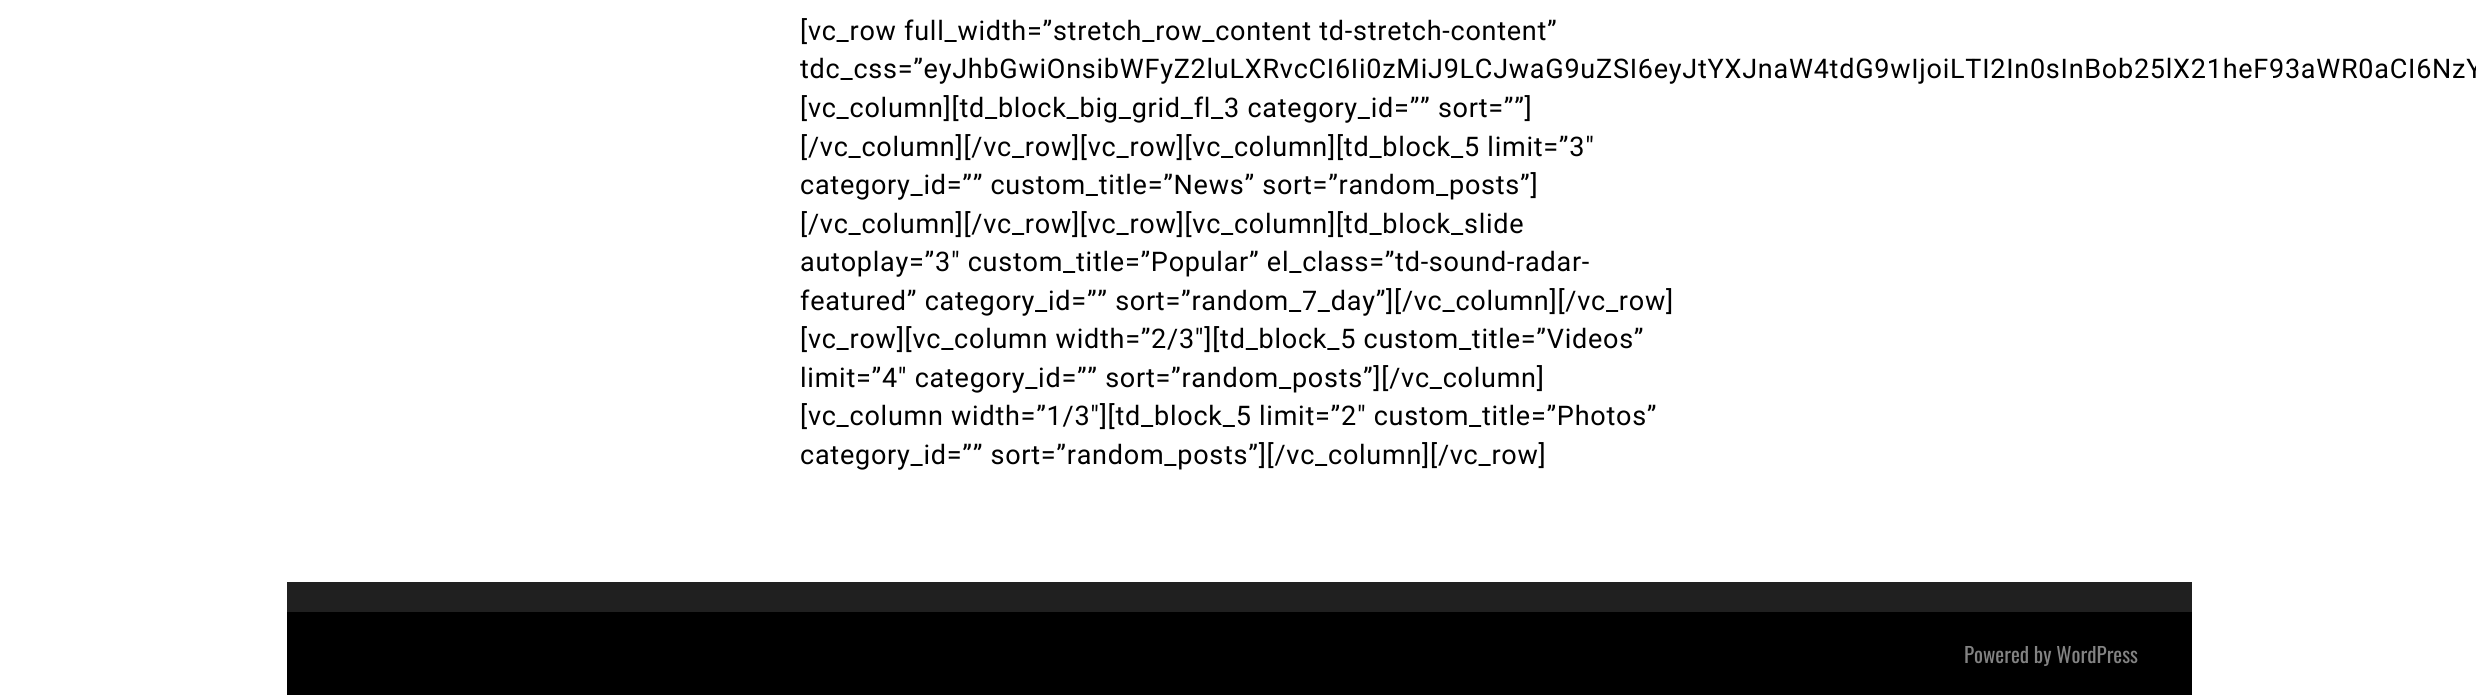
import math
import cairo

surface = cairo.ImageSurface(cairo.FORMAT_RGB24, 2476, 695)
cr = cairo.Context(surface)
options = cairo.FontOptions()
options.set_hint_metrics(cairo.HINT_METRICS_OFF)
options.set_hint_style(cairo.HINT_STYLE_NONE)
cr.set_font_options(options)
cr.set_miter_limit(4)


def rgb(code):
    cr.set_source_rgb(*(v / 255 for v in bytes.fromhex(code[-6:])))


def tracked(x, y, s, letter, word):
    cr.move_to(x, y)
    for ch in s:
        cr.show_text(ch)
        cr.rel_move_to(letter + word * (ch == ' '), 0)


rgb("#ffffff")
cr.paint()
rgb("#202020")
cr.rectangle(287, 582, 1905, 30)
cr.fill()
rgb("#000000")
cr.rectangle(287, 612, 1905, 83)
cr.fill()
cr.select_font_face("Roboto")
cr.set_font_size(27)
for x, y, s in [
    (800, 40, "[vc_row full_width=”stretch_row_content td-stretch-content”"),
    (800, 78, "tdc_css=”eyJhbGwiOnsibWFyZ2luLXRvcCI6Ii0zMiJ9LCJwaG9uZSI6eyJtYXJnaW4tdG9wIjoiLTI2In0sInBob25lX21heF93aWR0aCI6NzY"),
    (800, 117, "[vc_column][td_block_big_grid_fl_3 category_id=”” sort=””]"),
    (800, 156, "[/vc_column][/vc_row][vc_row][vc_column][td_block_5 limit=”3″"),
    (800, 194, "category_id=”” custom_title=”News” sort=”random_posts”]"),
    (800, 233, "[/vc_column][/vc_row][vc_row][vc_column][td_block_slide"),
    (800, 271, "autoplay=”3″ custom_title=”Popular” el_class=”td-sound-radar-"),
    (800, 310, "featured” category_id=”” sort=”random_7_day”][/vc_column][/vc_row]"),
    (800, 348, "[vc_row][vc_column width=”2/3″][td_block_5 custom_title=”Videos”"),
    (800, 387, "limit=”4″ category_id=”” sort=”random_posts”][/vc_column]"),
    (800, 425, "[vc_column width=”1/3″][td_block_5 limit=”2″ custom_title=”Photos”"),
    (800, 464, "category_id=”” sort=”random_posts”][/vc_column][/vc_row]"),
]:
    tracked(x, y, s, 0.75, 0)
cr.select_font_face("Oswald")
cr.set_font_size(21)
rgb("#838383")
cr.move_to(1964, 663)
cr.show_text("Powered by WordPress")
surface.write_to_png("page.png")
